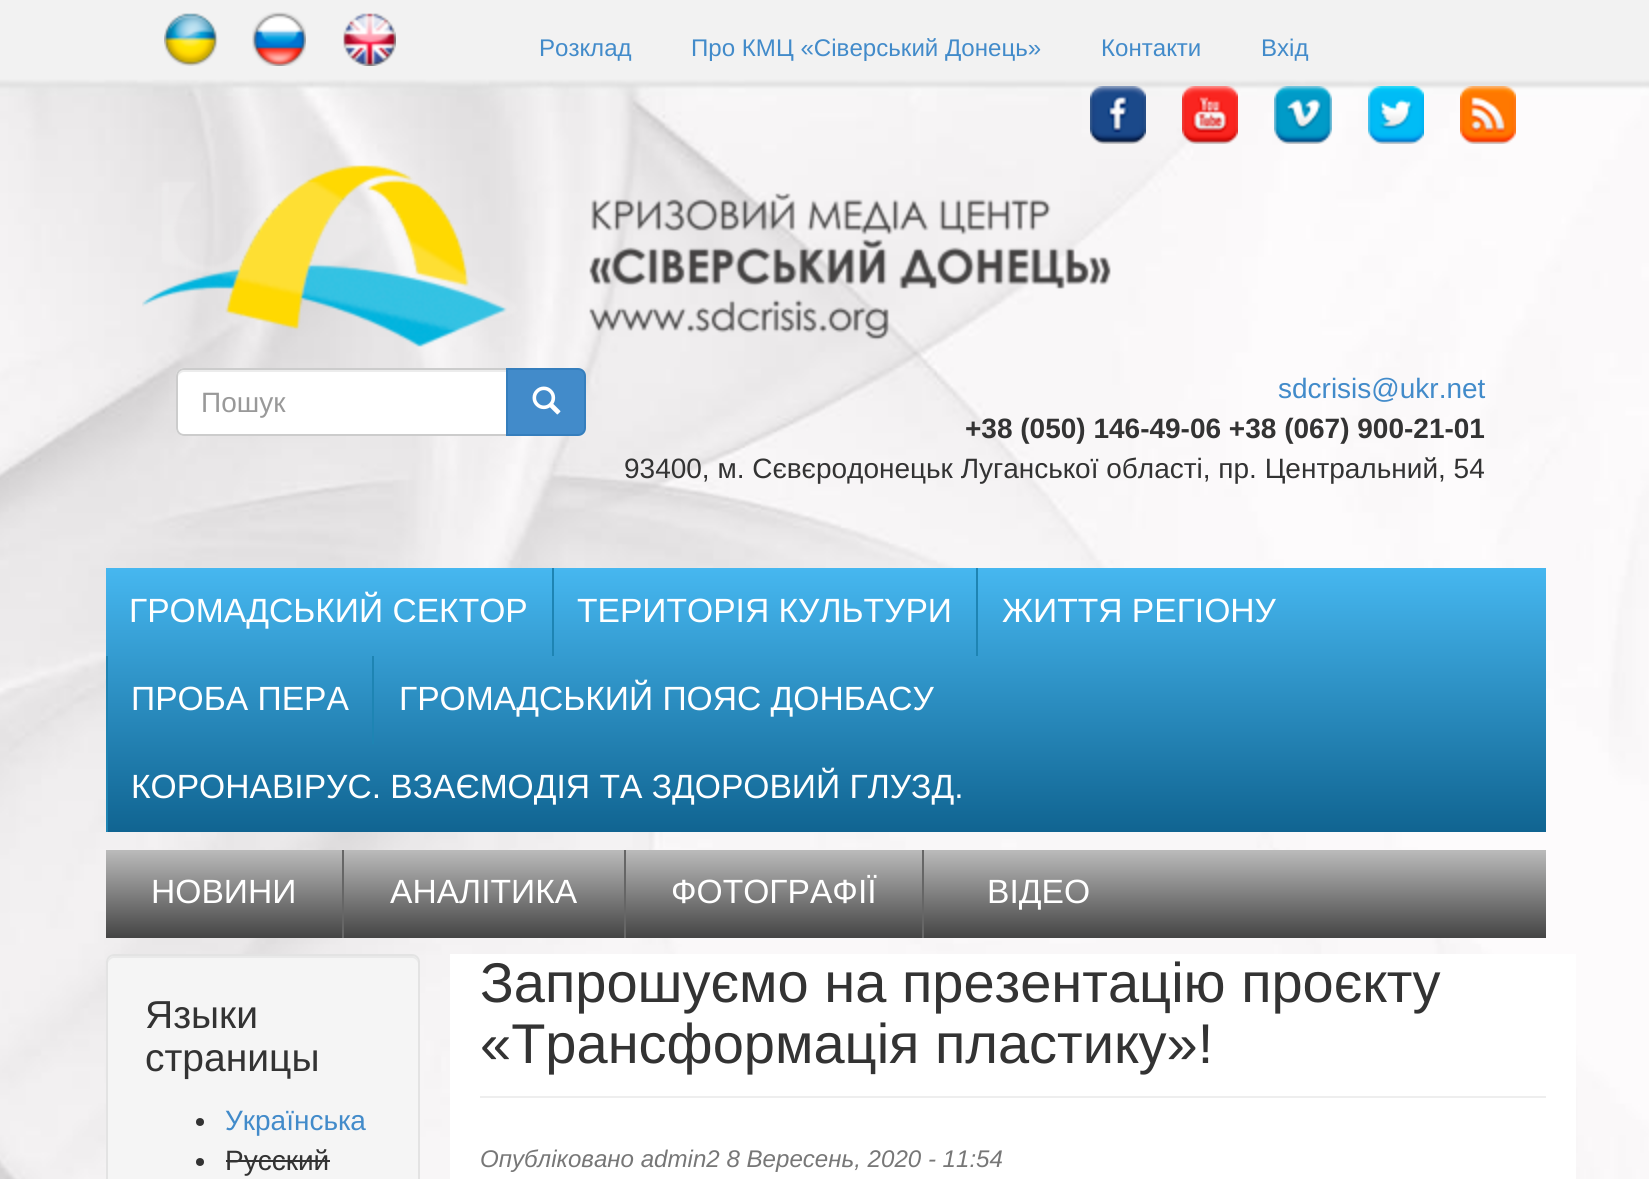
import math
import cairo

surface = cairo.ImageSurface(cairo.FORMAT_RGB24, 1649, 1179)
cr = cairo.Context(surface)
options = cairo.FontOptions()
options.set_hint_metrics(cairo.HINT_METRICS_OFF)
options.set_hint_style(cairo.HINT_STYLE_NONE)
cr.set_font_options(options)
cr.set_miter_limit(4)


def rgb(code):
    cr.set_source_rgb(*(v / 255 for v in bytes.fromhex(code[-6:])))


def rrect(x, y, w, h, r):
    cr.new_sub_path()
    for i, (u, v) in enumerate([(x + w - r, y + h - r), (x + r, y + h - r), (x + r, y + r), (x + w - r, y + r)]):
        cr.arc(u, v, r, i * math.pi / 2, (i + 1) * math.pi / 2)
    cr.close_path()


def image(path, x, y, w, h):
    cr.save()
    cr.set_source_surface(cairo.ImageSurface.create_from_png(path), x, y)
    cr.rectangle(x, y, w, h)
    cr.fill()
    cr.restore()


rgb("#ffffff")
cr.paint()
image("img/1.png", 0, 0, 1649, 1179)
image("img/2.png", 164, 13, 54, 53)
image("img/3.png", 252, 12, 54, 54)
image("img/4.png", 343, 13, 53, 53)
image("img/5.png", 1090, 86, 56, 58)
image("img/6.png", 1182, 86, 56, 58)
image("img/7.png", 1274, 86, 58, 58)
image("img/8.png", 1368, 86, 56, 58)
image("img/9.png", 1460, 86, 56, 58)
image("img/10.png", 142, 165, 969, 182)
rgb("#ffffff")
cr.new_path()
cr.move_to(184, 368)
cr.line_to(508, 368)
cr.line_to(508, 436)
cr.line_to(184, 436)
cr.curve_to(179.5, 436, 176, 432.5, 176, 428)
cr.line_to(176, 376)
cr.curve_to(176, 371.5, 179.5, 368, 184, 368)
cr.close_path()
cr.fill()
rgb("#ececec")
cr.new_path()
cr.move_to(184, 372)
cr.line_to(506, 372)
cr.line_to(506, 370)
cr.line_to(184, 370)
cr.curve_to(179, 370, 178, 374, 178, 378)
cr.curve_to(178, 375, 181, 372, 184, 372)
cr.close_path()
cr.fill()
cr.new_path()
cr.move_to(184, 369)
cr.line_to(507, 369)
cr.line_to(507, 435)
cr.line_to(184, 435)
cr.curve_to(180, 435, 177, 432, 177, 428)
cr.line_to(177, 376)
cr.curve_to(177, 372, 180, 369, 184, 369)
cr.close_path()
rgb("#cccccc")
cr.stroke()
rgb("#428bca")
cr.new_path()
cr.move_to(507, 369)
cr.line_to(578, 369)
cr.curve_to(582, 369, 585, 372, 585, 376)
cr.line_to(585, 428)
cr.curve_to(585, 432, 582, 435, 578, 435)
cr.line_to(507, 435)
cr.close_path()
cr.fill_preserve()
rgb("#357ebd")
cr.stroke()
image("img/11.png", 532, 386, 29, 29)
gradient = cairo.LinearGradient(106, 568, 106, 832)
gradient.add_color_stop_rgba(0, 0.275, 0.718, 0.941, 1)
gradient.add_color_stop_rgba(1, 0.063, 0.392, 0.569, 1)
cr.set_source(gradient)
cr.rectangle(106, 568, 1440, 264)
cr.fill()
for x, y, w, h, color in [
    (552, 568, 2, 88, "#1e84b3"),
    (976, 568, 2, 88, "#1e84b3"),
    (106, 656, 2, 176, "#1e84b3"),
    (372, 656, 2, 88, "#1e84b3"),
]:
    rgb(color)
    cr.rectangle(x, y, w, h)
    cr.fill()
gradient = cairo.LinearGradient(106, 850, 106, 938)
gradient.add_color_stop_rgba(0, 0.733, 0.733, 0.733, 1)
gradient.add_color_stop_rgba(1, 0.267, 0.267, 0.267, 1)
cr.set_source(gradient)
cr.rectangle(106, 850, 1440, 88)
cr.fill()
for x, y, w, h, color in [
    (342, 850, 2, 88, "#666666"),
    (624, 850, 2, 88, "#666666"),
    (922, 850, 2, 88, "#666666"),
]:
    rgb(color)
    cr.rectangle(x, y, w, h)
    cr.fill()
rgb("#f5f5f5")
rrect(106, 954, 314, 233, 8)
cr.fill()
rgb("#e9e9e9")
cr.new_path()
cr.move_to(114, 958)
cr.line_to(412, 958)
cr.curve_to(415, 958, 418, 961, 418, 964)
cr.line_to(418, 962)
cr.curve_to(418, 959, 415, 956, 412, 956)
cr.line_to(114, 956)
cr.curve_to(111, 956, 108, 959, 108, 962)
cr.line_to(108, 964)
cr.curve_to(108, 961, 111, 958, 114, 958)
cr.close_path()
cr.fill()
rrect(107, 955, 312, 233, 7)
rgb("#e3e3e3")
cr.stroke()
rgb("#333333")
cr.arc(200, 1122, 4, 0, 2 * math.pi)
cr.fill()
cr.arc(200, 1162, 4, 0, 2 * math.pi)
cr.fill()
for x, y, w, h, color in [
    (226, 1160, 104, 2, "#333333"),
    (450, 954, 1126, 225, "#ffffff"),
    (480, 1096, 1066, 2, "#eeeeee"),
]:
    rgb(color)
    cr.rectangle(x, y, w, h)
    cr.fill()
cr.select_font_face("Liberation Sans")
cr.set_font_size(24.1)
rgb("#428bca")
for x, y, s in [
    (539, 56, "Розклад"),
    (691, 56, "Про КМЦ «Сіверський Донець»"),
    (1101, 56, "Контакти"),
    (1261, 56, "Вхід"),
]:
    cr.move_to(x, y)
    cr.show_text(s)
cr.set_font_size(28)
rgb("#999999")
cr.move_to(201, 412)
cr.show_text("Пошук")
rgb("#428bca")
cr.move_to(1278, 398)
cr.show_text("sdcrisis@ukr.net")
cr.select_font_face("Liberation Sans", cairo.FONT_SLANT_NORMAL, cairo.FONT_WEIGHT_BOLD)
rgb("#333333")
cr.move_to(965, 438)
cr.show_text("+38 (050) 146-49-06 +38 (067) 900-21-01")
cr.select_font_face("Liberation Sans")
cr.move_to(624, 478)
cr.show_text("93400, м. Сєвєродонецьк Луганської області, пр. Центральний, 54")
cr.set_font_size(33.6)
rgb("#ffffff")
for x, y, s in [
    (129, 622, "ГРОМАДСЬКИЙ СЕКТОР"),
    (577, 622, "ТЕРИТОРІЯ КУЛЬТУРИ"),
    (1002, 622, "ЖИТТЯ РЕГІОНУ"),
    (131, 710, "ПРОБА ПЕРА"),
    (399, 710, "ГРОМАДСЬКИЙ ПОЯС ДОНБАСУ"),
    (131, 798, "КОРОНАВІРУС. ВЗАЄМОДІЯ ТА ЗДОРОВИЙ ГЛУЗД."),
    (151, 903, "НОВИНИ"),
    (390, 903, "АНАЛІТИКА"),
    (671, 903, "ФОТОГРАФІЇ"),
    (987, 903, "ВІДЕО"),
]:
    cr.move_to(x, y)
    cr.show_text(s)
cr.set_font_size(39)
rgb("#333333")
cr.move_to(145, 1028)
cr.show_text("Языки")
cr.move_to(145, 1071)
cr.show_text("страницы")
cr.set_font_size(28)
rgb("#428bca")
cr.move_to(225, 1130)
cr.show_text("Українська")
rgb("#333333")
cr.move_to(225, 1170)
cr.show_text("Русский")
cr.set_font_size(56)
cr.move_to(480, 1002)
cr.show_text("Запрошуємо на презентацію проєкту")
cr.move_to(480, 1063)
cr.show_text("«Трансформація пластику»!")
cr.select_font_face("Liberation Sans", cairo.FONT_SLANT_ITALIC)
cr.set_font_size(24.1)
rgb("#777777")
cr.move_to(480, 1167)
cr.show_text("Опубліковано admin2 8 Вересень, 2020 - 11:54")
surface.write_to_png("page.png")
